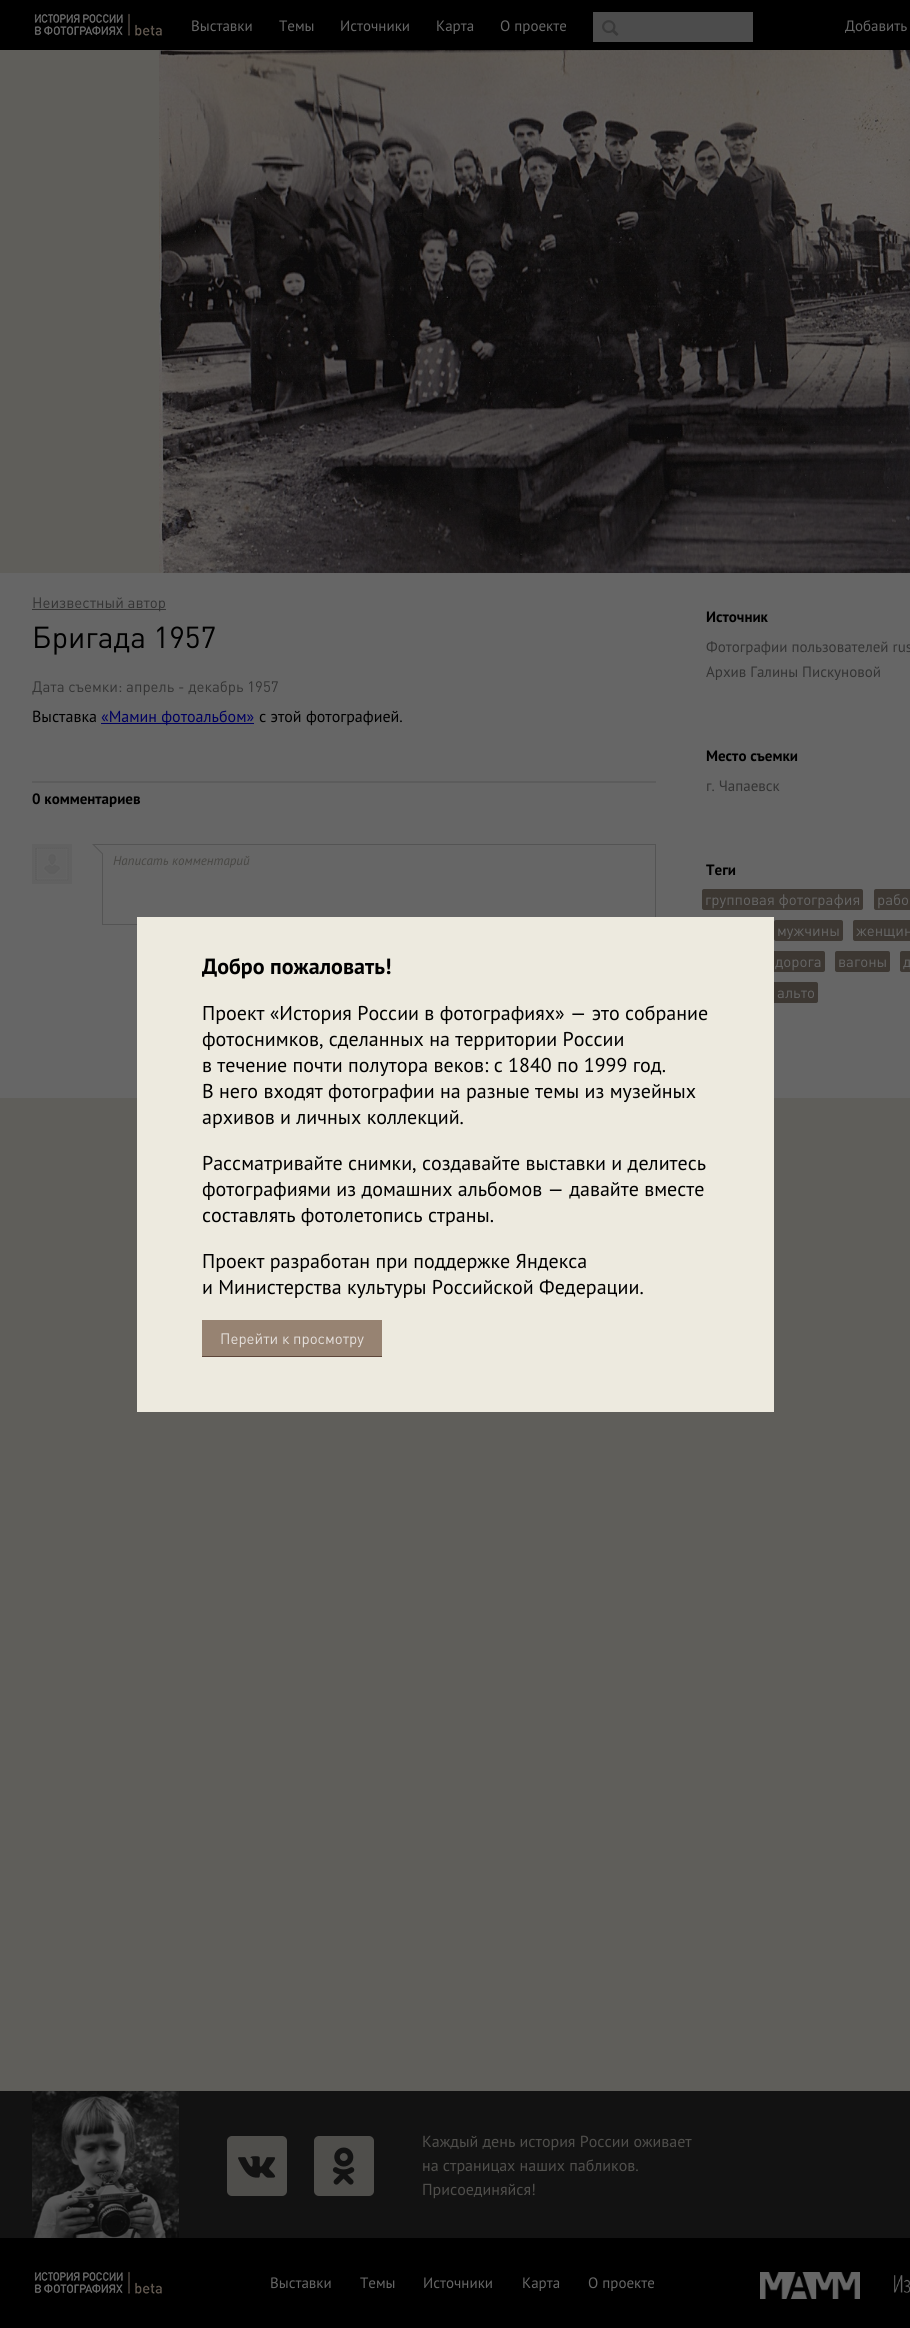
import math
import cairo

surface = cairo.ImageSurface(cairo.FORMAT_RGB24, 910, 2328)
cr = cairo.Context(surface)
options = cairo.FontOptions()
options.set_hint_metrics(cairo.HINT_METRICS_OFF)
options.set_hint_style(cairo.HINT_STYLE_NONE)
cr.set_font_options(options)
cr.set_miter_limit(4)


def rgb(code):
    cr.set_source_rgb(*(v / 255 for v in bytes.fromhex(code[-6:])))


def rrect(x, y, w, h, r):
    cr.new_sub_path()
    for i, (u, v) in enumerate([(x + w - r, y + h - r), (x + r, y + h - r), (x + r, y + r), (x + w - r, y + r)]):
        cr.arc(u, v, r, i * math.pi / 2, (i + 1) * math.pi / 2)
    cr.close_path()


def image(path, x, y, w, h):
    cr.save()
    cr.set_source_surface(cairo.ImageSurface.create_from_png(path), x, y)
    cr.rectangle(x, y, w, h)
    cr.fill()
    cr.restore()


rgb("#5f5e5a")
cr.paint()
rgb("#000000")
cr.rectangle(0, 0, 910, 50)
cr.fill()
image("img/1.png", 34, 13, 128, 23)
rgb("#4c4c4c")
cr.rectangle(593, 12, 160, 30)
cr.fill()
image("img/2.png", 602, 20, 17, 16)
image("img/3.png", 159, 50, 751, 523)
for x, y, w, h, color in [
    (0, 573, 910, 525, "#666666"),
    (32, 609, 134, 1, "#333333"),
    (101, 723, 153, 1, "#00005f"),
    (32, 781, 624, 2, "#5c5c5c"),
]:
    rgb(color)
    cr.rectangle(x, y, w, h)
    cr.fill()
image("img/4.png", 32, 844, 40, 40)
cr.rectangle(102.5, 844.5, 553, 80)
rgb("#545454")
cr.set_line_width(1)
cr.stroke()
image("img/5.png", 92, 844, 11, 10)
rgb("#3c3732")
rrect(702, 889, 161, 21, 2)
cr.fill()
rrect(874, 889, 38, 21, 2)
cr.fill()
rrect(774, 920, 69, 21, 2)
cr.fill()
rrect(853, 920, 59, 21, 2)
cr.fill()
rrect(702, 951, 123, 21, 2)
cr.fill()
rrect(835, 951, 55, 21, 2)
cr.fill()
rrect(900, 951, 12, 21, 2)
cr.fill()
rrect(766, 982, 52, 21, 2)
cr.fill()
for x, y, w, h, color in [
    (137, 917, 637, 495, "#edeadf"),
    (202, 1320, 180, 36, "#978372"),
    (202, 1356, 180, 1, "#5c4539"),
    (0, 2091, 910, 147, "#121212"),
]:
    rgb(color)
    cr.rectangle(x, y, w, h)
    cr.fill()
image("img/6.png", 32, 2091, 147, 147)
image("img/7.png", 227, 2136, 60, 60)
image("img/8.png", 314, 2136, 60, 60)
rgb("#000000")
cr.rectangle(0, 2238, 910, 90)
cr.fill()
image("img/1.png", 34, 2271, 128, 23)
image("img/9.png", 760, 2272, 100, 27)
image("img/10.png", 894, 2275, 16, 18)
cr.select_font_face("PT Sans")
cr.set_font_size(15)
rgb("#666666")
for x, y, s in [
    (191, 31, "Выставки"),
    (279, 31, "Темы"),
    (340, 31, "Источники"),
    (436, 31, "Карта"),
    (500, 31, "О проекте"),
    (845, 31, "Добавить"),
]:
    cr.move_to(x, y)
    cr.show_text(s)
cr.select_font_face("DIN")
rgb("#333333")
cr.move_to(32, 608)
cr.show_text("Неизвестный автор")
cr.set_font_size(30)
rgb("#000000")
cr.move_to(32, 648)
cr.show_text("Бригада 1957")
cr.set_font_size(15)
rgb("#333333")
cr.move_to(32, 692)
cr.show_text("Дата съемки: апрель - декабрь 1957")
cr.select_font_face("PT Sans")
cr.set_font_size(16)
rgb("#000000")
cr.move_to(32, 722)
cr.show_text("Выставка")
rgb("#00005f")
cr.move_to(101, 722)
cr.show_text("«Мамин фотоальбом»")
rgb("#000000")
cr.move_to(259, 722)
cr.show_text("с этой фотографией.")
cr.select_font_face("PT Sans", cairo.FONT_SLANT_NORMAL, cairo.FONT_WEIGHT_BOLD)
cr.set_font_size(15)
cr.move_to(32, 804)
cr.show_text("0 комментариев")
cr.select_font_face("PT Sans", cairo.FONT_SLANT_ITALIC)
cr.set_font_size(13)
rgb("#474643")
cr.move_to(113, 865)
cr.show_text("Написать комментарий")
cr.select_font_face("PT Sans", cairo.FONT_SLANT_NORMAL, cairo.FONT_WEIGHT_BOLD)
cr.set_font_size(15)
rgb("#000000")
cr.move_to(706, 622)
cr.show_text("Источник")
cr.select_font_face("PT Sans")
rgb("#333333")
cr.move_to(706, 652)
cr.show_text("Фотографии пользователей rus")
cr.move_to(706, 677)
cr.show_text("Архив Галины Пискуновой")
cr.select_font_face("PT Sans", cairo.FONT_SLANT_NORMAL, cairo.FONT_WEIGHT_BOLD)
rgb("#000000")
cr.move_to(706, 761)
cr.show_text("Место съемки")
cr.select_font_face("PT Sans")
rgb("#333333")
cr.move_to(706, 791)
cr.show_text("г. Чапаевск")
cr.select_font_face("PT Sans", cairo.FONT_SLANT_NORMAL, cairo.FONT_WEIGHT_BOLD)
rgb("#000000")
cr.move_to(706, 875)
cr.show_text("Теги")
cr.select_font_face("DIN")
rgb("#666666")
for x, y, s in [
    (705, 905, "групповая фотография"),
    (877, 905, "рабо"),
    (777, 936, "мужчины"),
    (856, 936, "женщин"),
    (775, 967, "дорога"),
    (838, 967, "вагоны"),
    (903, 967, "д"),
    (777, 998, "альто"),
]:
    cr.move_to(x, y)
    cr.show_text(s)
cr.select_font_face("PT Sans", cairo.FONT_SLANT_NORMAL, cairo.FONT_WEIGHT_BOLD)
cr.set_font_size(22)
rgb("#000000")
cr.move_to(202, 974)
cr.show_text("Добро пожаловать!")
cr.select_font_face("PT Sans")
cr.set_font_size(20)
for x, y, s in [
    (202, 1020, "Проект «История России в фотографиях» — это собрание"),
    (202, 1046, "фотоснимков, сделанных на территории России"),
    (202, 1072, "в течение почти полутора веков: с 1840 по 1999 год."),
    (202, 1098, "В него входят фотографии на разные темы из музейных"),
    (202, 1124, "архивов и личных коллекций."),
    (202, 1170, "Рассматривайте снимки, создавайте выставки и делитесь"),
    (202, 1196, "фотографиями из домашних альбомов — давайте вместе"),
    (202, 1222, "составлять фотолетопись страны."),
    (202, 1268, "Проект разработан при поддержке Яндекса"),
    (202, 1294, "и Министерства культуры Российской Федерации."),
]:
    cr.move_to(x, y)
    cr.show_text(s)
cr.select_font_face("DIN")
cr.set_font_size(15)
rgb("#e5e0dc")
cr.move_to(220, 1344)
cr.show_text("Перейти к просмотру")
cr.select_font_face("PT Sans")
cr.set_font_size(16)
rgb("#4f4e4b")
for x, y, s in [
    (422, 2147, "Каждый день история России оживает"),
    (422, 2171, "на страницах наших пабликов."),
    (422, 2195, "Присоединяйся!"),
]:
    cr.move_to(x, y)
    cr.show_text(s)
cr.set_font_size(15)
rgb("#666666")
for x, y, s in [
    (270, 2288, "Выставки"),
    (360, 2288, "Темы"),
    (423, 2288, "Источники"),
    (522, 2288, "Карта"),
    (588, 2288, "О проекте"),
]:
    cr.move_to(x, y)
    cr.show_text(s)
surface.write_to_png("page.png")
